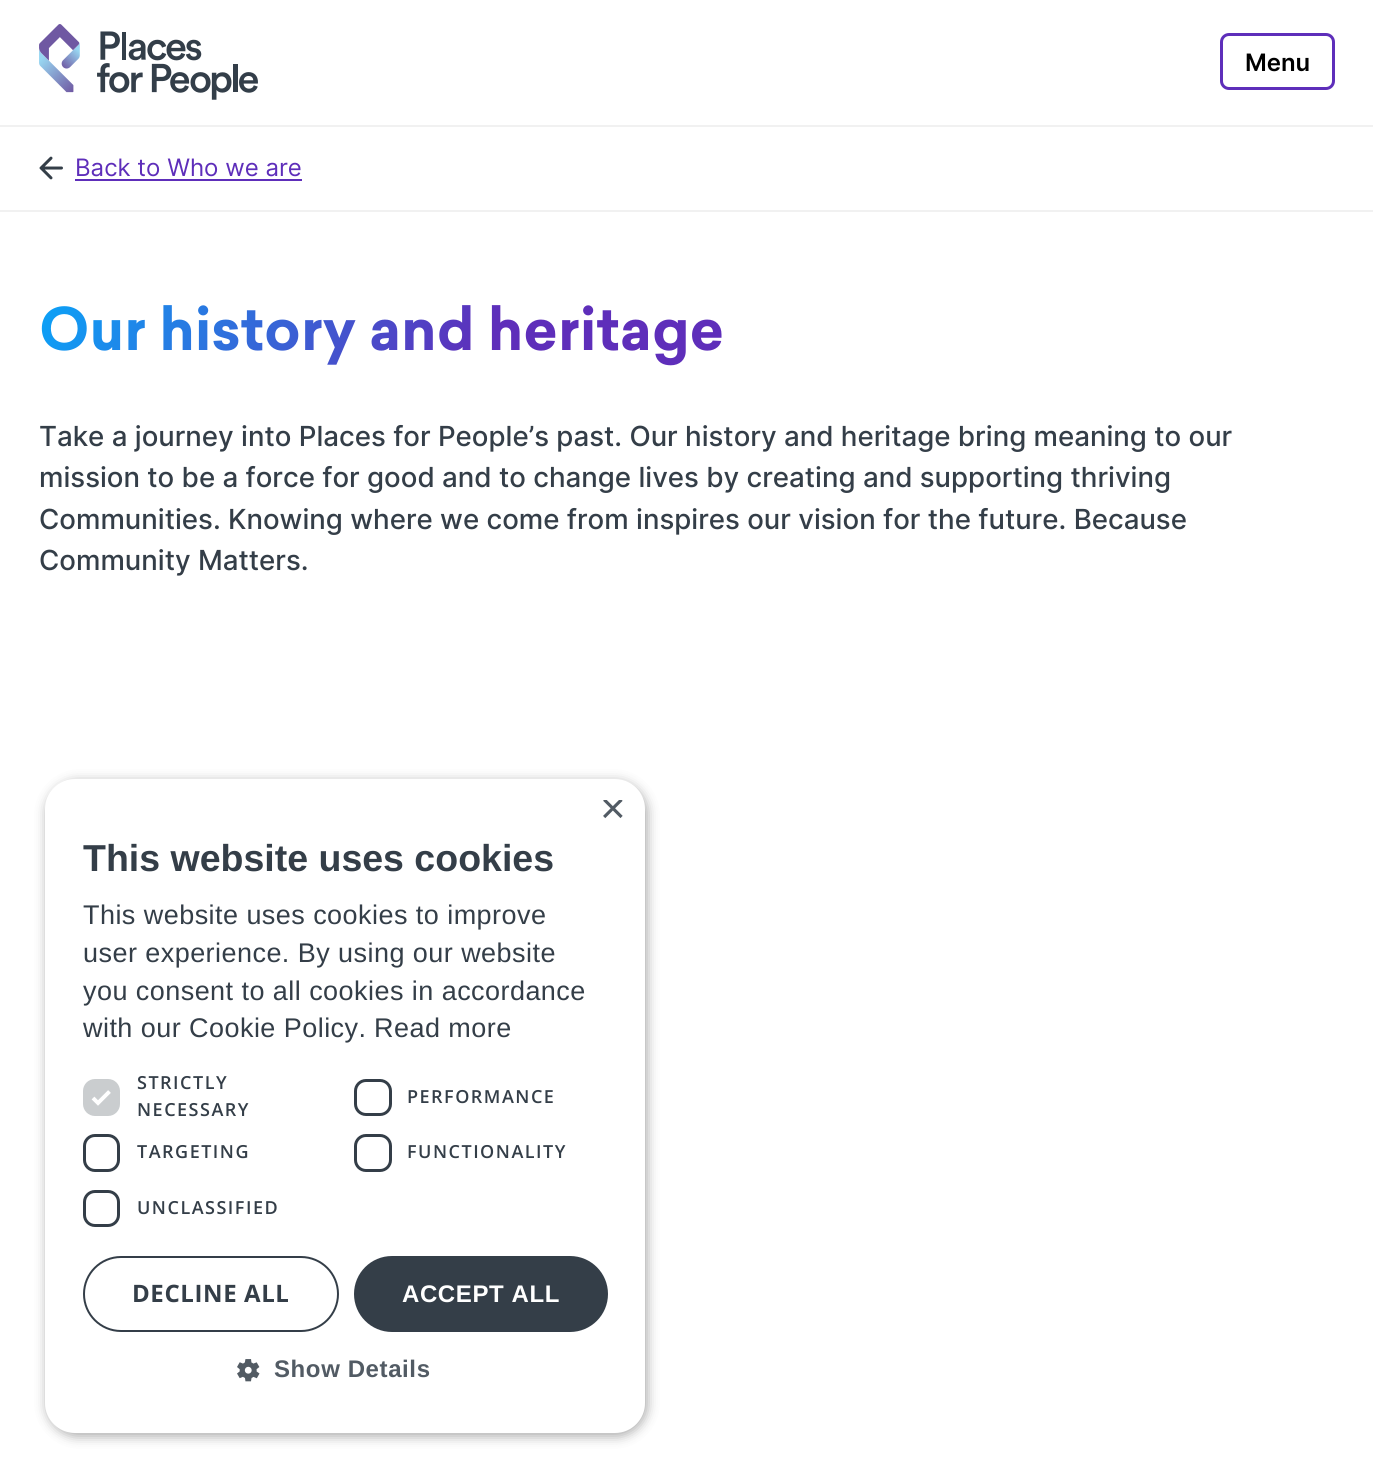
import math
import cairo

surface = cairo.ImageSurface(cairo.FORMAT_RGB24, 1373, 1477)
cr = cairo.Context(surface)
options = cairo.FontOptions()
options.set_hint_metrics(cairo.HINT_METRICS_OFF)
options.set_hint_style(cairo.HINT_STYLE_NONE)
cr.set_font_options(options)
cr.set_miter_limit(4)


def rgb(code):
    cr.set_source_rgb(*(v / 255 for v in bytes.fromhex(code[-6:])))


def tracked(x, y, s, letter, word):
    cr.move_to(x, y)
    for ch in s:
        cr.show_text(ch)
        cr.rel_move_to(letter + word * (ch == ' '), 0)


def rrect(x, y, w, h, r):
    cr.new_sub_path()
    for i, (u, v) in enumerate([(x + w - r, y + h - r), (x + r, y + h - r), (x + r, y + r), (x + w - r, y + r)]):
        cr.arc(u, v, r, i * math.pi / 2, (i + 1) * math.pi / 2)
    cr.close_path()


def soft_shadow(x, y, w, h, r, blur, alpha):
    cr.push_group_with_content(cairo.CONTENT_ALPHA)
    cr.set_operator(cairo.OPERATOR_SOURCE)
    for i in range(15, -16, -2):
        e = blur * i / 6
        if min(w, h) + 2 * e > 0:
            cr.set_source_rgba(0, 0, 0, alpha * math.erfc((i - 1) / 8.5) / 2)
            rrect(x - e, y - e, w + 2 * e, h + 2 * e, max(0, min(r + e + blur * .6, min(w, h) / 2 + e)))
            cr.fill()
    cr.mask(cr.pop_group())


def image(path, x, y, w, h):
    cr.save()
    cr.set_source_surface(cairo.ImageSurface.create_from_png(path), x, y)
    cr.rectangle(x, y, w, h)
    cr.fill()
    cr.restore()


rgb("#ffffff")
cr.paint()
image("img/1.png", 39, 24, 219, 76)
rrect(1221.5, 34.5, 112, 54, 7.5)
rgb("#5e2eba")
cr.set_line_width(3)
cr.stroke()
rgb("#f1f1f1")
cr.rectangle(0, 125, 1373, 2)
cr.fill()
cr.rectangle(0, 210, 1373, 2)
cr.fill()
image("img/2.png", 39, 156, 24, 24)
rgb("#5e2eba")
cr.rectangle(75, 179, 227, 2)
cr.fill()
rgb("#000000")
soft_shadow(47, 782, 600, 654, 30, 6, 0.35)
rgb("#ffffff")
rrect(45, 779, 600, 654, 30)
cr.fill()
rgb("#cacdcf")
rrect(83, 1079, 37, 37, 12)
cr.fill()
cr.new_path()
cr.move_to(93, 1098)
cr.line_to(98, 1103)
cr.line_to(109.5, 1091.5)
rgb("#ffffff")
cr.set_line_width(3.9)
cr.stroke()
rrect(355.5, 1080.5, 35, 34, 10.5)
rgb("#343e48")
cr.set_line_width(3)
cr.stroke()
rrect(84.5, 1135.5, 34, 35, 10.5)
cr.stroke()
rrect(355.5, 1135.5, 35, 35, 10.5)
cr.stroke()
rrect(84.5, 1191.5, 34, 34, 10.5)
cr.stroke()
rrect(84, 1257, 254, 74, 37)
cr.set_line_width(2)
cr.stroke()
rrect(354, 1256, 254, 76, 38)
cr.fill()
image("img/3.png", 237, 1359, 23, 23)
cr.select_font_face("Inter SemiBold")
cr.set_font_size(24)
rgb("#000000")
cr.move_to(1245, 71)
cr.show_text("Menu")
cr.select_font_face("Inter")
rgb("#5e2eba")
cr.move_to(75, 176)
cr.show_text("Back to Who we are")
cr.select_font_face("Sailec", cairo.FONT_SLANT_NORMAL, cairo.FONT_WEIGHT_BOLD)
cr.set_font_size(57.75)
gradient = cairo.LinearGradient(668, 476, 49, 162)
gradient.add_color_stop_rgba(0.32, 0.369, 0.18, 0.729, 1)
gradient.add_color_stop_rgba(1, 0, 0.694, 1, 1)
cr.set_source(gradient)
cr.move_to(39, 350)
cr.show_text("Our history and heritage")
cr.select_font_face("Inter Medium")
cr.set_font_size(27.65)
rgb("#343e48")
for x, y, s in [
    (39, 446, "Take a journey into Places for People’s past. Our history and heritage bring meaning to our"),
    (39, 487, "mission to be a force for good and to change lives by creating and supporting thriving"),
    (39, 529, "Communities. Knowing where we come from inspires our vision for the future. Because"),
    (39, 570, "Community Matters."),
]:
    cr.move_to(x, y)
    cr.show_text(s)
cr.save()
cr.rectangle(600, 800, 23, 22)
cr.clip()
cr.select_font_face("Liberation Sans")
cr.set_font_size(44)
rgb("#525b64")
cr.move_to(600, 823)
cr.show_text("×")
cr.restore()
cr.select_font_face("Liberation Sans", cairo.FONT_SLANT_NORMAL, cairo.FONT_WEIGHT_BOLD)
cr.set_font_size(37.5)
cr.move_to(83, 871)
cr.show_text("This website uses cookies")
cr.select_font_face("Liberation Sans")
cr.set_font_size(27)
for x, y, s in [
    (83, 924, "This website uses cookies to improve"),
    (83, 962, "user experience. By using our website"),
    (83, 1000, "you consent to all cookies in accordance"),
    (83, 1037, "with our Cookie Policy."),
    (374, 1037, "Read more"),
]:
    tracked(x, y, s, 0.45, 0)
cr.select_font_face("Open Sans SemiBold")
cr.set_font_size(18)
for x, y, s in [
    (137, 1089, "STRICTLY"),
    (137, 1116, "NECESSARY"),
    (407, 1103, "PERFORMANCE"),
    (137, 1158, "TARGETING"),
    (407, 1158, "FUNCTIONALITY"),
    (137, 1214, "UNCLASSIFIED"),
]:
    tracked(x, y, s, 1.5, 0)
cr.select_font_face("Open Sans", cairo.FONT_SLANT_NORMAL, cairo.FONT_WEIGHT_BOLD)
cr.set_font_size(24)
tracked(132, 1302, "DECLINE ALL", 0.6, 0)
cr.select_font_face("Liberation Sans", cairo.FONT_SLANT_NORMAL, cairo.FONT_WEIGHT_BOLD)
rgb("#ffffff")
tracked(402, 1302, "ACCEPT ALL", 0.6, 0)
rgb("#525b64")
tracked(274, 1377, "Show Details", 0.6, 0)
surface.write_to_png("page.png")
